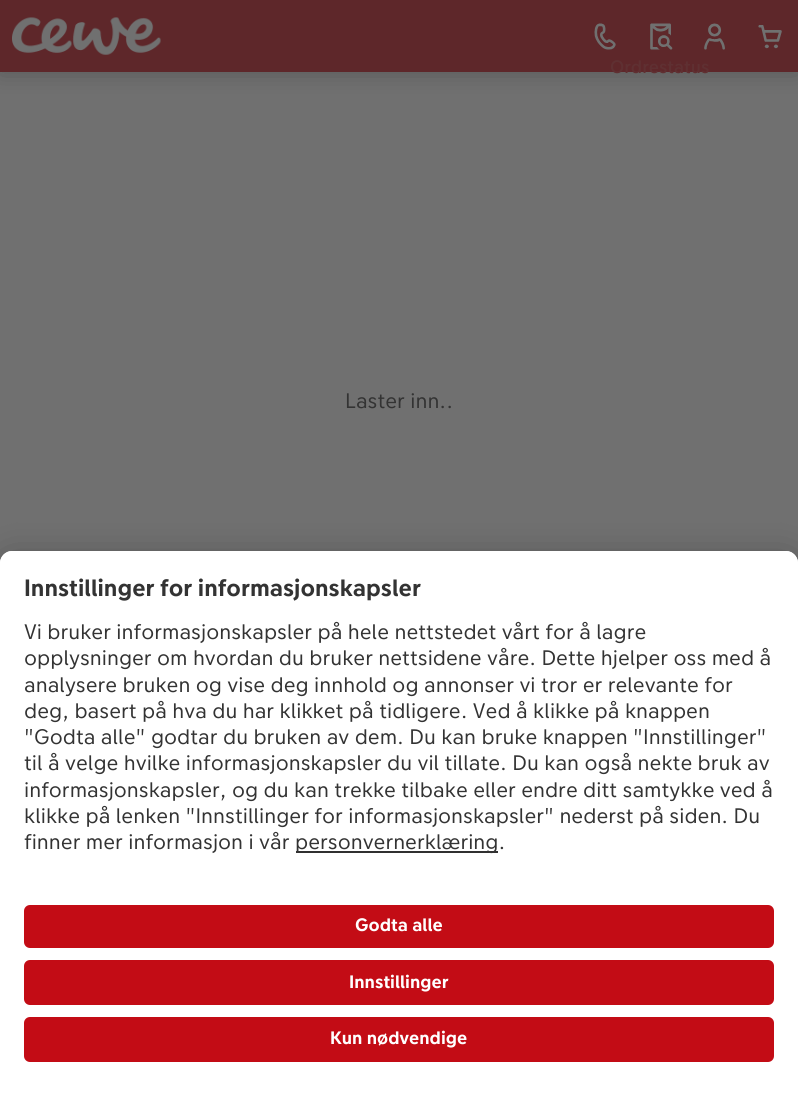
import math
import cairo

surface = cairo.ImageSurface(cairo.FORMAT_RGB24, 798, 1104)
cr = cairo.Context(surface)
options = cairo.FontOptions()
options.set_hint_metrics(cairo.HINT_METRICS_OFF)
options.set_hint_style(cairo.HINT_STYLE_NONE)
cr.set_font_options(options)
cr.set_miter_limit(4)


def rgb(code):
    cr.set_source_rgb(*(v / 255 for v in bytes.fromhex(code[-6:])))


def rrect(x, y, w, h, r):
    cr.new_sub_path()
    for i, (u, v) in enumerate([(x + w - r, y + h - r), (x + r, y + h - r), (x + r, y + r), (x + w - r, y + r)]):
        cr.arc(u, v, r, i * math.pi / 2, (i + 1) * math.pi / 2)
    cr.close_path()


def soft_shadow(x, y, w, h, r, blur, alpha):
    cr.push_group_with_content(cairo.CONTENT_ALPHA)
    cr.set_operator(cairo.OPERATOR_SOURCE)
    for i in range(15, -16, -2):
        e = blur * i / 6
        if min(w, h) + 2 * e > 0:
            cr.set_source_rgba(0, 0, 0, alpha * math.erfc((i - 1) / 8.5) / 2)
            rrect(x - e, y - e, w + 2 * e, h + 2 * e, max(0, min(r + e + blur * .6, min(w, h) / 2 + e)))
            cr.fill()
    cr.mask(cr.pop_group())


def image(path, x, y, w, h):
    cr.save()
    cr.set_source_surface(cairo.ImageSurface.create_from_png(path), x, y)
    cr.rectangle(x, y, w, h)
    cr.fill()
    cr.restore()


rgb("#707070")
cr.paint()
rgb("#242424")
soft_shadow(0, 0, 798, 72, 0, 12, 0.33)
rgb("#5e272a")
cr.rectangle(0, 0, 798, 72)
cr.fill()
image("img/1.png", 12, 17, 149, 38)
image("img/2.png", 594, 23, 22, 27)
image("img/3.png", 704, 23, 21, 27)
image("img/4.png", 758, 25, 24, 24)
image("img/5.png", 650, 23, 23, 27)
rgb("#000000")
soft_shadow(0, 581, 798, 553, 12, 21, 0.3)
soft_shadow(0, 558, 798, 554, 12, 19.5, 0.22)
rgb("#ffffff")
cr.new_path()
cr.move_to(12, 551)
cr.line_to(786, 551)
cr.curve_to(792.5, 551, 798, 556.5, 798, 563)
cr.line_to(798, 1104)
cr.line_to(0, 1104)
cr.line_to(0, 563)
cr.curve_to(0, 556.5, 5.5, 551, 12, 551)
cr.close_path()
cr.fill()
cr.new_path()
cr.move_to(12, 551)
cr.line_to(786, 551)
cr.curve_to(792.5, 551, 798, 556.5, 798, 563)
cr.line_to(798, 887)
cr.line_to(0, 887)
cr.line_to(0, 563)
cr.curve_to(0, 556.5, 5.5, 551, 12, 551)
cr.close_path()
cr.fill()
rgb("#303030")
cr.rectangle(296, 851, 202, 2)
cr.fill()
rgb("#c30c15")
rrect(24, 905, 750, 43, 6)
cr.fill()
rrect(24, 960, 750, 45, 6)
cr.fill()
rrect(24, 1017, 750, 45, 6)
cr.fill()
cr.select_font_face("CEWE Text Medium")
cr.set_font_size(18)
rgb("#5f3032")
cr.move_to(610, 73)
cr.show_text("Ordrestatus")
cr.select_font_face("CEWE Text")
cr.set_font_size(21)
rgb("#333333")
cr.move_to(345, 408)
cr.show_text("Laster inn..")
cr.select_font_face("CEWE Text", cairo.FONT_SLANT_NORMAL, cairo.FONT_WEIGHT_BOLD)
cr.set_font_size(23.6)
cr.move_to(24, 596)
cr.show_text("Innstillinger for informasjonskapsler")
cr.select_font_face("CEWE Text")
cr.set_font_size(21)
for x, y, s in [
    (24, 639, "Vi bruker informasjonskapsler på hele nettstedet vårt for å lagre"),
    (24, 665, "opplysninger om hvordan du bruker nettsidene våre. Dette hjelper oss med å"),
    (24, 692, "analysere bruken og vise deg innhold og annonser vi tror er relevante for"),
    (24, 718, "deg, basert på hva du har klikket på tidligere. Ved å klikke på knappen"),
    (24, 744, "\"Godta alle\" godtar du bruken av dem. Du kan bruke knappen \"Innstillinger\""),
    (24, 770, "til å velge hvilke informasjonskapsler du vil tillate. Du kan også nekte bruk av"),
    (24, 797, "informasjonskapsler, og du kan trekke tilbake eller endre ditt samtykke ved å"),
    (24, 823, "klikke på lenken \"Innstillinger for informasjonskapsler\" nederst på siden. Du"),
    (24, 849, "finner mer informasjon i vår"),
    (295, 849, "personvernerklæring."),
]:
    cr.move_to(x, y)
    cr.show_text(s)
cr.select_font_face("CEWE Text", cairo.FONT_SLANT_NORMAL, cairo.FONT_WEIGHT_BOLD)
cr.set_font_size(18)
rgb("#ffffff")
for x, y, s in [
    (355, 931, "Godta alle"),
    (349, 988, "Innstillinger"),
    (330, 1044, "Kun nødvendige"),
]:
    cr.move_to(x, y)
    cr.show_text(s)
surface.write_to_png("page.png")
